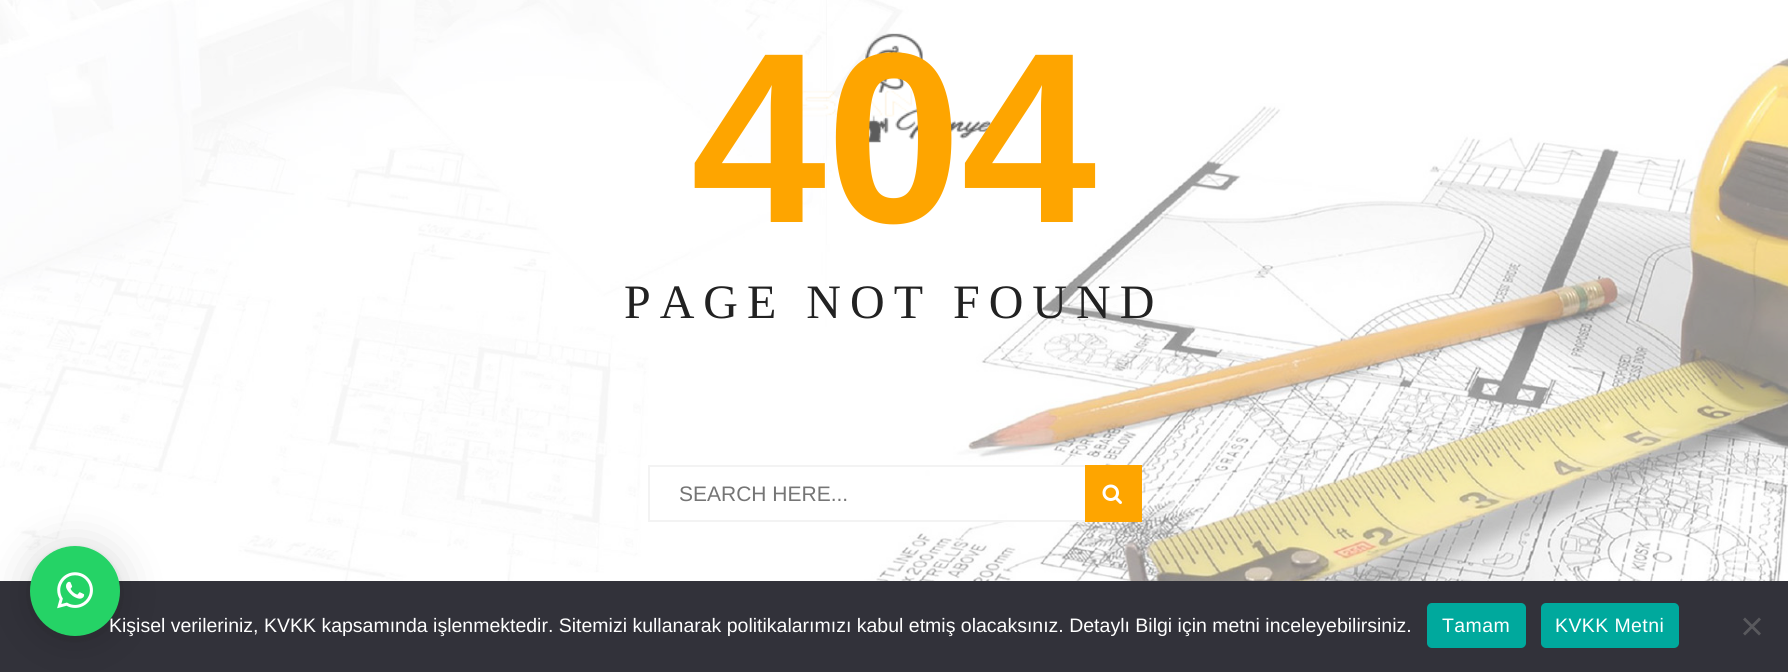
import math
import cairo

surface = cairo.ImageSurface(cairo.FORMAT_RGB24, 1788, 672)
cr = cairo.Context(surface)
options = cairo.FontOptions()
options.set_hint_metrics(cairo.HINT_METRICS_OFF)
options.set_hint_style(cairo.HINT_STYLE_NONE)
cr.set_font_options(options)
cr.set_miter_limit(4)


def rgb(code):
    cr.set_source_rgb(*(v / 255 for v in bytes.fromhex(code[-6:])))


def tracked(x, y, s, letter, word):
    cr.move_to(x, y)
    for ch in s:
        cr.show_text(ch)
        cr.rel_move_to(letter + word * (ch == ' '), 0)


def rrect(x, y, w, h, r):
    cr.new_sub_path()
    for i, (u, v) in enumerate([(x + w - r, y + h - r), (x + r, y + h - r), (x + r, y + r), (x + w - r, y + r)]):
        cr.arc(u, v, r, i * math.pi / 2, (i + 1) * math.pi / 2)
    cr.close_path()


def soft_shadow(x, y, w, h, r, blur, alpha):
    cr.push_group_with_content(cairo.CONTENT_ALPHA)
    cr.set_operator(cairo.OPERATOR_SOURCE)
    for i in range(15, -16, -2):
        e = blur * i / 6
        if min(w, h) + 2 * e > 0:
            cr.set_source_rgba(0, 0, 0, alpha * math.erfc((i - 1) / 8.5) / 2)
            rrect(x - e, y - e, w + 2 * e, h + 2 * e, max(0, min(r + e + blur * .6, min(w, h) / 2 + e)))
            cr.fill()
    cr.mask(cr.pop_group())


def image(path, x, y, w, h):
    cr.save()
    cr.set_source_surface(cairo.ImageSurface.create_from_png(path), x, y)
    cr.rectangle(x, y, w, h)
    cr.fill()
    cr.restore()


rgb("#ffffff")
cr.paint()
image("img/1.png", 0, 0, 1788, 581)
image("img/2.png", 796, 33, 196, 110)
rgb("#ffffff")
cr.rectangle(1007, 467, 78, 53)
cr.fill()
cr.rectangle(649, 466, 492, 55)
rgb("#f3f3f3")
cr.stroke()
rgb("#fea500")
cr.rectangle(1085, 465, 57, 57)
cr.fill()
image("img/3.png", 1102, 484, 20, 20)
rgb("#32323a")
cr.rectangle(0, 581, 1788, 91)
cr.fill()
rgb("#000000")
soft_shadow(30, 549, 90, 90, 45, 24, 0.16)
soft_shadow(30, 548, 90, 90, 45, 4.5, 0.06)
rgb("#00a99d")
rrect(1427, 603, 99, 45, 5)
cr.fill()
rrect(1541, 603, 138, 45, 5)
cr.fill()
rgb("#59595d")
cr.new_path()
cr.move_to(1759, 617.5)
cr.line_to(1761, 619.5)
cr.line_to(1745, 635.5)
cr.line_to(1743, 633.5)
cr.close_path()
cr.fill()
cr.new_path()
cr.move_to(1743, 619.5)
cr.line_to(1745, 617.5)
cr.line_to(1761, 633.5)
cr.line_to(1759, 635.5)
cr.close_path()
cr.fill()
cr.select_font_face("Liberation Sans", cairo.FONT_SLANT_NORMAL, cairo.FONT_WEIGHT_BOLD)
cr.set_font_size(243)
rgb("#fea500")
cr.move_to(691, 222)
cr.show_text("404")
cr.select_font_face("Liberation Serif")
cr.set_font_size(48)
rgb("#222222")
tracked(624, 318, "PAGE NOT FOUND", 9, 0)
cr.select_font_face("Liberation Sans")
cr.set_font_size(21)
rgb("#757575")
cr.move_to(679, 501)
cr.show_text("SEARCH HERE...")
cr.set_font_size(19.5)
rgb("#ffffff")
cr.move_to(109, 632)
cr.show_text("Kişisel verileriniz, KVKK kapsamında işlenmektedir. Sitemizi kullanarak politikalarımızı kabul etmiş olacaksınız. Detaylı Bilgi için metni inceleyebilirsiniz.")
rgb("#25d366")
cr.new_path()
cr.arc(75, 591, 45, 0, 2 * math.pi)
cr.fill()
image("img/4.png", 57, 572, 36, 37)
rgb("#ffffff")
tracked(1442, 632, "Tamam", 0.4, 0)
tracked(1555, 632, "KVKK Metni", 0.4, 0)
surface.write_to_png("page.png")
